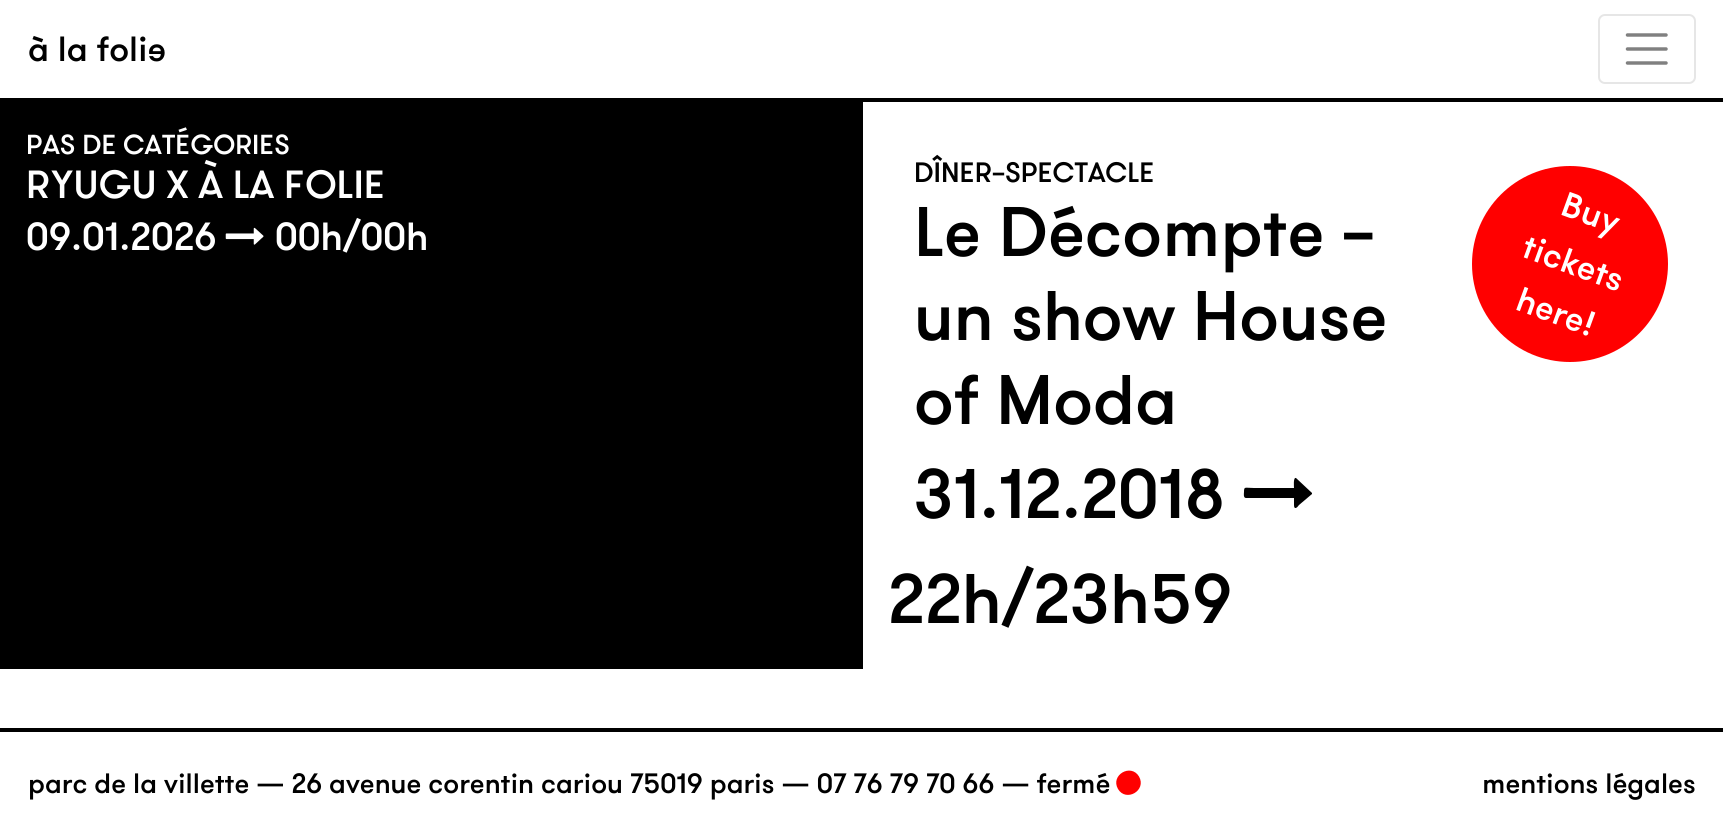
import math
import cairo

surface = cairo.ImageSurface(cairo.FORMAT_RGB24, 1723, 832)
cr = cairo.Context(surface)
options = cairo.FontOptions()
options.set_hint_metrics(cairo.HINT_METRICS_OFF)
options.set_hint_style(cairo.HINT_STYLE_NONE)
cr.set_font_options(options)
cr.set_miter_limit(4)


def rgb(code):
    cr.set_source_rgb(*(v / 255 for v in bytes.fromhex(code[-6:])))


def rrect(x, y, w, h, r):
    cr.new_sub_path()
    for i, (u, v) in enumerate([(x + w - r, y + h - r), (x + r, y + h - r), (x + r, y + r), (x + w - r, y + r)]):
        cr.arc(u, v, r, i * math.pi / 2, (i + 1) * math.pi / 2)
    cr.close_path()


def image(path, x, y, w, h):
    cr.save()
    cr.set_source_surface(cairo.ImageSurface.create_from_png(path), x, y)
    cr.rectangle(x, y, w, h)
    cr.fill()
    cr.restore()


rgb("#ffffff")
cr.paint()
rgb("#000000")
cr.rectangle(0, 98, 1723, 4)
cr.fill()
rrect(1599, 15, 96, 68, 6)
rgb("#e6e6e6")
cr.stroke()
cr.new_path()
cr.move_to(1627.5, 35)
cr.line_to(1666, 35)
cr.move_to(1627.5, 49)
cr.line_to(1666, 49)
cr.move_to(1627.5, 63)
cr.line_to(1666, 63)
rgb("#808080")
cr.set_line_width(3.5)
cr.set_line_cap(cairo.LINE_CAP_ROUND)
cr.stroke()
rgb("#000000")
cr.rectangle(0, 102, 863, 567)
cr.fill()
image("img/1.png", 225, 227, 39, 18)
rgb("#ff0000")
cr.arc(1570, 264, 98, 0, 2 * math.pi)
cr.fill()
rgb("#000000")
cr.new_path()
cr.move_to(1312, 493)
cr.line_to(1312, 494)
cr.line_to(1299, 505)
cr.curve_to(1297, 508, 1294, 510, 1294, 505)
cr.line_to(1294, 498)
cr.line_to(1246, 498)
cr.curve_to(1243, 498, 1244, 493, 1244, 492)
cr.curve_to(1244, 486, 1245, 488, 1254, 488)
cr.line_to(1294, 488)
cr.curve_to(1294, 487, 1293, 477, 1296, 478)
cr.close_path()
cr.fill()
cr.rectangle(0, 728, 1723, 4)
cr.fill()
rgb("#ff0000")
cr.new_path()
cr.move_to(1139, 776.5)
cr.curve_to(1147, 790.5, 1126, 802.5, 1118, 789)
cr.curve_to(1110, 775, 1131, 763, 1139, 776.5)
cr.close_path()
cr.fill()
cr.select_font_face("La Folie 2 Medium")
cr.set_font_size(35)
rgb("#000000")
cr.move_to(28, 61)
cr.show_text("à la folie")
cr.select_font_face("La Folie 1 Medium")
cr.set_font_size(27.5)
rgb("#ffffff")
cr.move_to(26, 154)
cr.show_text("PAS DE CATÉGORIES")
cr.set_font_size(39.25)
for x, y, s in [
    (26, 198, "RYUGU X À LA FOLIE"),
    (26, 250, "09.01.2026"),
    (275, 250, "00h/00h"),
]:
    cr.move_to(x, y)
    cr.show_text(s)
cr.set_font_size(28)
rgb("#000000")
cr.move_to(914, 182)
cr.show_text("DÎNER-SPECTACLE")
cr.set_font_size(70)
for x, y, s in [
    (914, 256, "Le Décompte -"),
    (914, 340, "un show House"),
    (914, 424, "of Moda"),
]:
    cr.move_to(x, y)
    cr.show_text(s)
cr.set_font_size(35)
rgb("#ffffff")
cr.save()
cr.translate(1559, 214)
cr.rotate(20 * math.pi / 180)
cr.move_to(0, 0)
cr.show_text("Buy")
cr.restore()
cr.save()
cr.translate(1520, 256)
cr.rotate(20 * math.pi / 180)
cr.move_to(0, 0)
cr.show_text("tickets")
cr.restore()
cr.save()
cr.translate(1514, 309)
cr.rotate(20 * math.pi / 180)
cr.move_to(0, 0)
cr.show_text("here!")
cr.restore()
cr.set_font_size(70)
rgb("#000000")
cr.move_to(914, 518)
cr.show_text("31.12.2018")
cr.move_to(888, 623)
cr.show_text("22h/23h59")
cr.set_font_size(28)
cr.move_to(28, 793)
cr.show_text("parc de la villette — 26 avenue corentin cariou 75019 paris — 07 76 79 70 66 — fermé")
cr.move_to(1482, 793)
cr.show_text("mentions légales")
surface.write_to_png("page.png")
